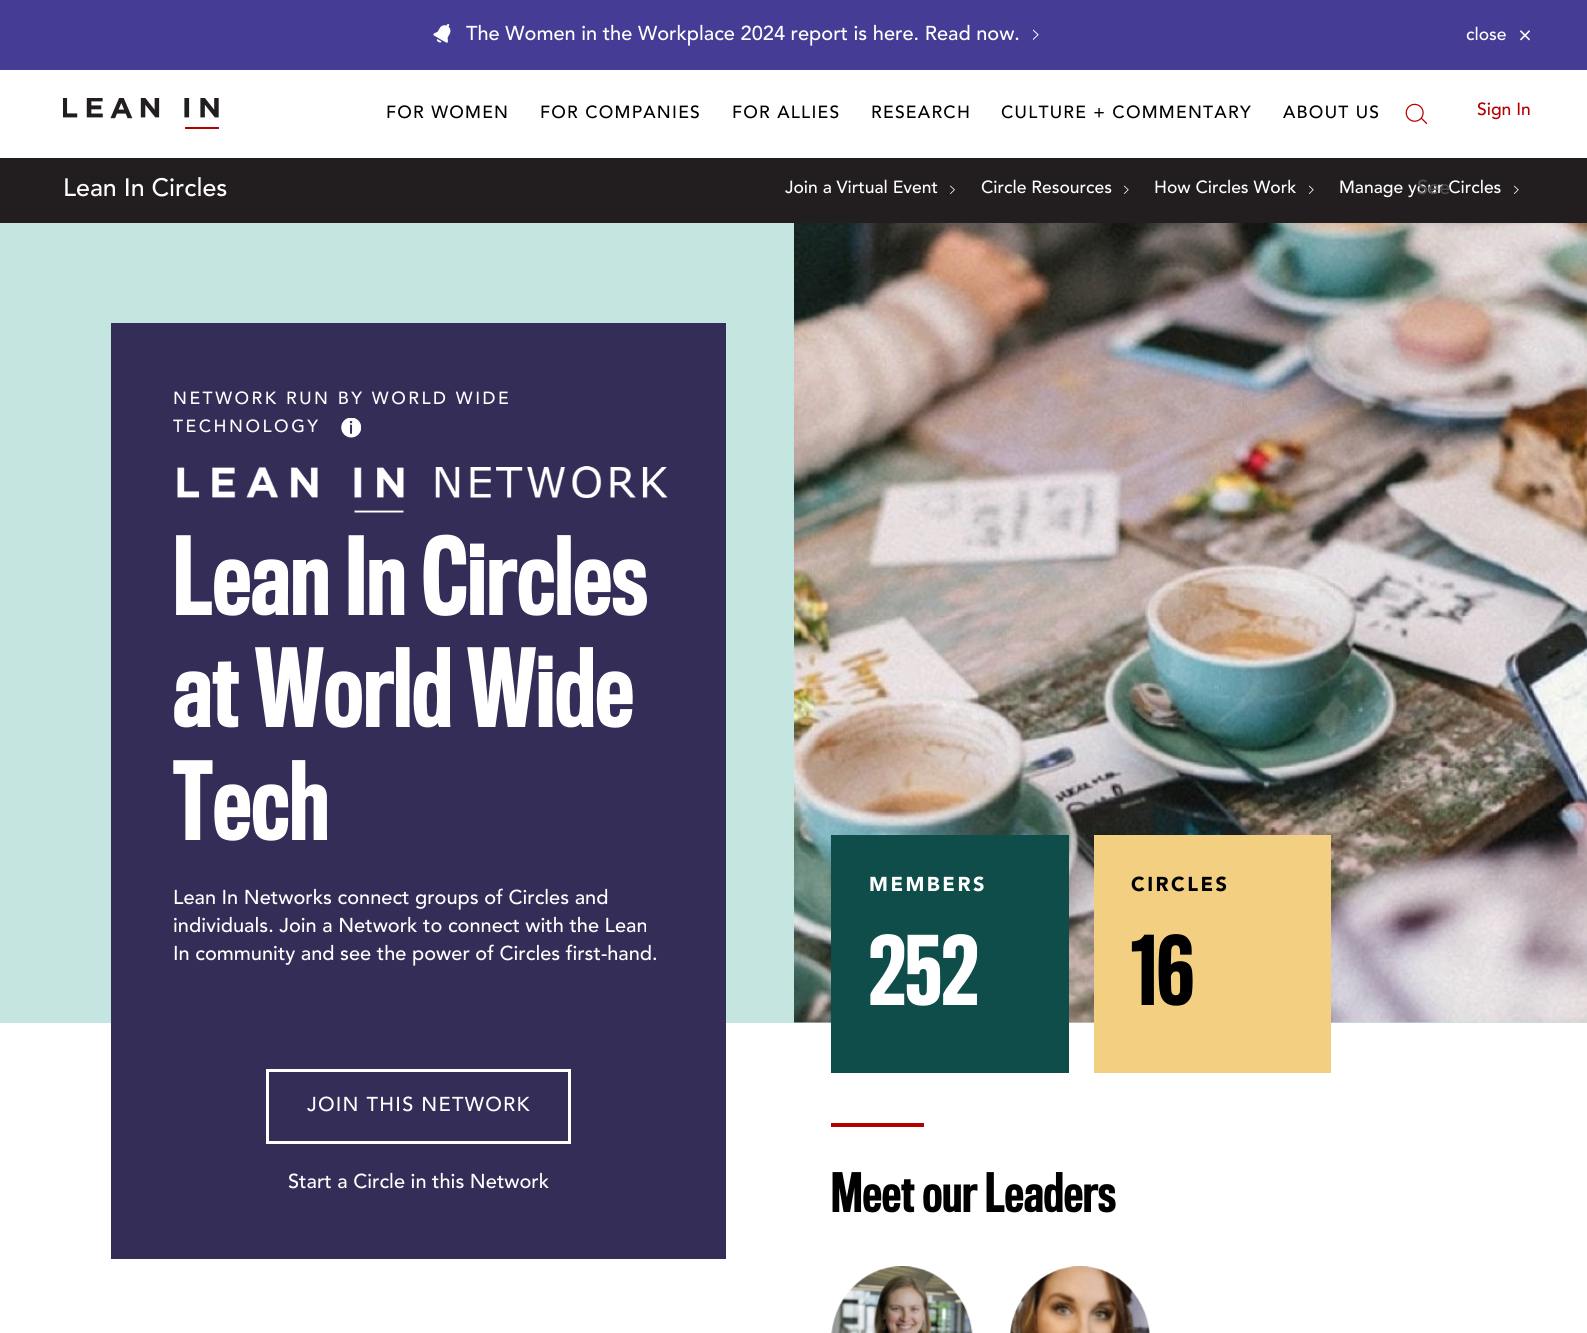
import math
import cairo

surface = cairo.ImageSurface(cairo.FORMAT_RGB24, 1587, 1333)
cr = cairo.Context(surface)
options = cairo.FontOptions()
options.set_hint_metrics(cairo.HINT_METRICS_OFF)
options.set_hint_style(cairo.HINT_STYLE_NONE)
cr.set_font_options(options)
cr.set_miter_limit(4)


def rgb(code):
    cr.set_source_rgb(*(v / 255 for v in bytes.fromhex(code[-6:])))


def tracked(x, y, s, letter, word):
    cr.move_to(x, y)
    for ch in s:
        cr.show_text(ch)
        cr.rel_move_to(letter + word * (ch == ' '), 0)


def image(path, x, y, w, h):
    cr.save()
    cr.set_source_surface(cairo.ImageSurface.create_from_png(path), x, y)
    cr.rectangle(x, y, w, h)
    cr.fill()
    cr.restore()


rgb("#ffffff")
cr.paint()
rgb("#453d95")
cr.rectangle(0, 0, 1587, 70)
cr.fill()
image("img/1.png", 433, 24, 18, 19)
image("img/2.png", 1033, 29, 6, 11)
image("img/3.png", 1519, 30, 11, 11)
image("img/4.png", 63, 98, 156, 31)
image("img/5.png", 1405, 103, 23, 22)
rgb("#221e1f")
cr.rectangle(0, 158, 1587, 65)
cr.fill()
image("img/6.png", 950, 185, 5, 9)
image("img/7.png", 1124, 185, 5, 9)
image("img/7.png", 1309, 185, 5, 9)
image("img/7.png", 1514, 185, 5, 9)
rgb("#c5e5e1")
cr.rectangle(0, 223, 1587, 800)
cr.fill()
image("img/8.png", 794, 223, 793, 800)
rgb("#332d58")
cr.rectangle(111, 323, 615, 936)
cr.fill()
image("img/9.png", 341, 418, 20, 20)
image("img/10.png", 177, 466, 491, 47)
cr.rectangle(267.5, 1070.5, 302, 72)
rgb("#ffffff")
cr.set_line_width(3)
cr.stroke()
for x, y, w, h, color in [
    (831, 835, 238, 238, "#0e4d49"),
    (1094, 835, 237, 238, "#f3cf81"),
    (831, 1123, 93, 4, "#b30101"),
]:
    rgb(color)
    cr.rectangle(x, y, w, h)
    cr.fill()
image("img/11.png", 831, 1266, 142, 67)
image("img/12.png", 1010, 1266, 140, 67)
cr.select_font_face("Avenir")
cr.set_font_size(20)
rgb("#ffffff")
cr.move_to(466, 40)
cr.show_text("The Women in the Workplace 2024 report is here. Read now.")
cr.set_font_size(17.5)
cr.move_to(1466, 40)
cr.show_text("close")
rgb("#000000")
for x, y, s in [
    (386, 118, "FOR WOMEN"),
    (540, 118, "FOR COMPANIES"),
    (732, 118, "FOR ALLIES"),
    (871, 118, "RESEARCH"),
    (1001, 118, "CULTURE + COMMENTARY"),
    (1283, 118, "ABOUT US"),
]:
    tracked(x, y, s, 1.25, 0)
rgb("#b30101")
cr.move_to(1477, 115)
cr.show_text("Sign In")
cr.set_font_size(25)
rgb("#ffffff")
cr.move_to(63, 196)
cr.show_text("Lean In Circles")
cr.set_font_size(17.5)
for x, y, s in [
    (785, 193, "Join a Virtual Event"),
    (981, 193, "Circle Resources"),
    (1154, 193, "How Circles Work"),
    (1339, 193, "Manage your Circles"),
]:
    cr.move_to(x, y)
    cr.show_text(s)
cr.set_font_size(20)
rgb("#504d4e")
cr.move_to(1417, 194)
cr.show_text("See")
cr.set_font_size(17.5)
rgb("#ffffff")
tracked(173, 404, "NETWORK RUN BY WORLD WIDE", 2.5, 0)
tracked(173, 432, "TECHNOLOGY", 2.5, 0)
cr.select_font_face("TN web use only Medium")
cr.set_font_size(100)
for x, y, s in [
    (173, 615, "Lean In Circles"),
    (173, 727, "at World Wide"),
    (173, 840, "Tech"),
]:
    cr.move_to(x, y)
    cr.show_text(s)
cr.select_font_face("Avenir")
cr.set_font_size(20)
for x, y, s in [
    (173, 904, "Lean In Networks connect groups of Circles and"),
    (173, 932, "individuals. Join a Network to connect with the Lean"),
    (173, 960, "In community and see the power of Circles first-hand."),
]:
    cr.move_to(x, y)
    cr.show_text(s)
tracked(307, 1111, "JOIN THIS NETWORK", 1.25, 0)
cr.move_to(288, 1188)
cr.show_text("Start a Circle in this Network")
cr.select_font_face("Avenir Black")
tracked(869, 891, "MEMBERS", 2.5, 0)
cr.select_font_face("TN web use only Medium")
cr.set_font_size(88)
cr.move_to(869, 1005)
cr.show_text("252")
cr.select_font_face("Avenir Black")
cr.set_font_size(20)
rgb("#000000")
tracked(1131, 891, "CIRCLES", 2.5, 0)
cr.select_font_face("TN web use only Medium")
cr.set_font_size(88)
cr.move_to(1131, 1005)
cr.show_text("16")
cr.set_font_size(50)
cr.move_to(831, 1212)
cr.show_text("Meet our Leaders")
surface.write_to_png("page.png")
